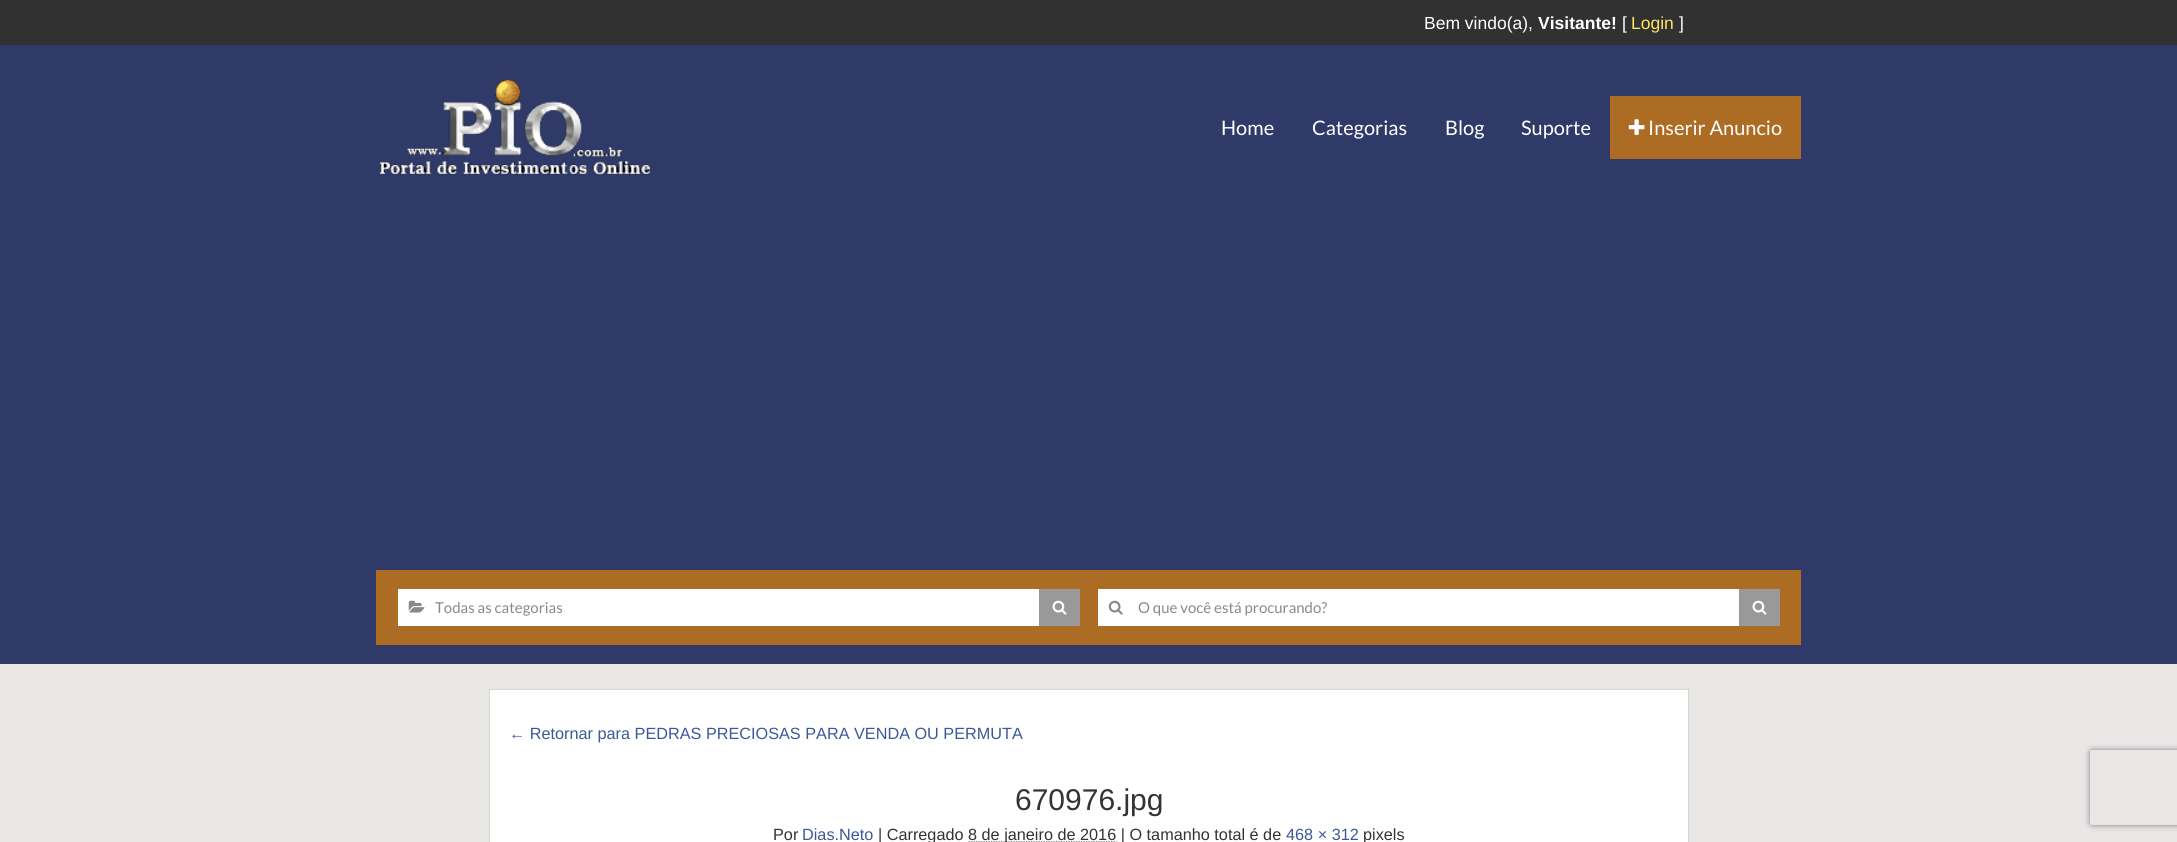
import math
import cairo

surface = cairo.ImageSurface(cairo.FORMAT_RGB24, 2177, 842)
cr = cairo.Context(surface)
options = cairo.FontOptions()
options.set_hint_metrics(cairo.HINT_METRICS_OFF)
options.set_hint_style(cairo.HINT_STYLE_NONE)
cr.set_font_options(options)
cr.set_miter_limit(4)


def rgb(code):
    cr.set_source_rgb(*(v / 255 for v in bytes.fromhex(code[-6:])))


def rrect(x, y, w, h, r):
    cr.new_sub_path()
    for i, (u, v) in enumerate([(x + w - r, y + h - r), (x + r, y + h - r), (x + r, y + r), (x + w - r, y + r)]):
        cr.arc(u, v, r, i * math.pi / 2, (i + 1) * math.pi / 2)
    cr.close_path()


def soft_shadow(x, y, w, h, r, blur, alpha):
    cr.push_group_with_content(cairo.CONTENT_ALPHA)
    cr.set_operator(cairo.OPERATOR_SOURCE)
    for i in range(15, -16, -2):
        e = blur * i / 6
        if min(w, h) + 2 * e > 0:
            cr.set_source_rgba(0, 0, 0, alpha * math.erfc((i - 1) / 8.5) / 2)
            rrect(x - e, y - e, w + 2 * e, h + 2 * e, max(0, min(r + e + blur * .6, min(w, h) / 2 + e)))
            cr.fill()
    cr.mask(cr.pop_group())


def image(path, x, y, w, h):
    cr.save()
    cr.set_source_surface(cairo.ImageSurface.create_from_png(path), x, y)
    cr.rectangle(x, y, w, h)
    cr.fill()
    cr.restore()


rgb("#e9e6e6")
cr.paint()
rgb("#2f3a69")
cr.rectangle(0, 45, 2177, 619)
cr.fill()
rgb("#313131")
cr.rectangle(0, 0, 2177, 45)
cr.fill()
image("img/1.png", 379, 79, 273, 98)
rgb("#ac6c23")
cr.rectangle(1610, 96, 191, 63)
cr.fill()
image("img/2.png", 1628, 119, 17, 16)
cr.rectangle(376, 570, 1425, 75)
cr.fill()
rgb("#ffffff")
cr.rectangle(398, 589, 641, 37)
cr.fill()
image("img/3.png", 408, 600, 17, 13)
rgb("#999999")
cr.rectangle(1039, 589, 41, 37)
cr.fill()
image("img/4.png", 1052, 600, 15, 15)
rgb("#ffffff")
cr.rectangle(1098, 589, 641, 37)
cr.fill()
image("img/5.png", 1108, 600, 15, 15)
rgb("#999999")
cr.rectangle(1739, 589, 41, 37)
cr.fill()
image("img/4.png", 1752, 600, 15, 15)
rgb("#ffffff")
cr.rectangle(489.5, 689.5, 1199, 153)
cr.fill_preserve()
rgb("#d7d6cc")
cr.set_line_width(1)
cr.stroke()
cr.new_path()
cr.move_to(968.5, 842)
cr.line_to(1116.5, 842)
rgb("#333333")
cr.set_line_width(1.2)
cr.set_dash([1.25, 1.25])
cr.stroke()
cr.save()
cr.set_fill_rule(cairo.FILL_RULE_EVEN_ODD)
cr.new_path()
cr.move_to(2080, 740)
cr.line_to(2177, 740)
cr.line_to(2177, 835)
cr.line_to(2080, 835)
cr.close_path()
cr.move_to(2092.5, 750)
cr.line_to(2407.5, 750)
cr.curve_to(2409, 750, 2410, 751, 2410, 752.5)
cr.line_to(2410, 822.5)
cr.curve_to(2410, 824, 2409, 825, 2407.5, 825)
cr.line_to(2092.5, 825)
cr.curve_to(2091, 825, 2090, 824, 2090, 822.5)
cr.line_to(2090, 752.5)
cr.curve_to(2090, 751, 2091, 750, 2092.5, 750)
cr.close_path()
cr.clip()
rgb("#808080")
soft_shadow(2090, 750, 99, 75, 2.5, 3, 1)
cr.restore()
cr.select_font_face("Liberation Sans")
cr.set_font_size(17.5)
rgb("#ffffff")
cr.move_to(1424, 29)
cr.show_text("Bem vindo(a),")
cr.select_font_face("Liberation Sans", cairo.FONT_SLANT_NORMAL, cairo.FONT_WEIGHT_BOLD)
cr.move_to(1538, 29)
cr.show_text("Visitante!")
cr.select_font_face("Liberation Sans")
cr.move_to(1622, 29)
cr.show_text("[")
rgb("#fde664")
cr.move_to(1631, 29)
cr.show_text("Login")
rgb("#ffffff")
cr.move_to(1679, 29)
cr.show_text("]")
cr.select_font_face("Lato")
cr.set_font_size(20)
for x, y, s in [
    (1221, 135, "Home"),
    (1312, 135, "Categorias"),
    (1445, 135, "Blog"),
    (1521, 135, "Suporte"),
    (1648, 135, "Inserir Anuncio"),
]:
    cr.move_to(x, y)
    cr.show_text(s)
cr.set_font_size(15)
rgb("#898989")
cr.move_to(435, 613)
cr.show_text("Todas as categorias")
cr.move_to(1138, 613)
cr.show_text("O que você está procurando?")
cr.select_font_face("Liberation Sans")
cr.set_font_size(16.25)
rgb("#3b5998")
cr.move_to(509, 739)
cr.show_text("← Retornar para PEDRAS PRECIOSAS PARA VENDA OU PERMUTA")
cr.set_font_size(30)
rgb("#333333")
cr.move_to(1015, 810)
cr.show_text("670976.jpg")
cr.set_font_size(16.25)
cr.move_to(773, 840)
cr.show_text("Por")
rgb("#3b5998")
cr.move_to(802, 840)
cr.show_text("Dias.Neto")
rgb("#333333")
cr.move_to(878, 840)
cr.show_text("| Carregado")
cr.move_to(968, 840)
cr.show_text("8 de janeiro de 2016 | O tamanho total é de")
rgb("#3b5998")
cr.move_to(1286, 840)
cr.show_text("468 × 312")
rgb("#333333")
cr.move_to(1363, 840)
cr.show_text("pixels")
surface.write_to_png("page.png")
